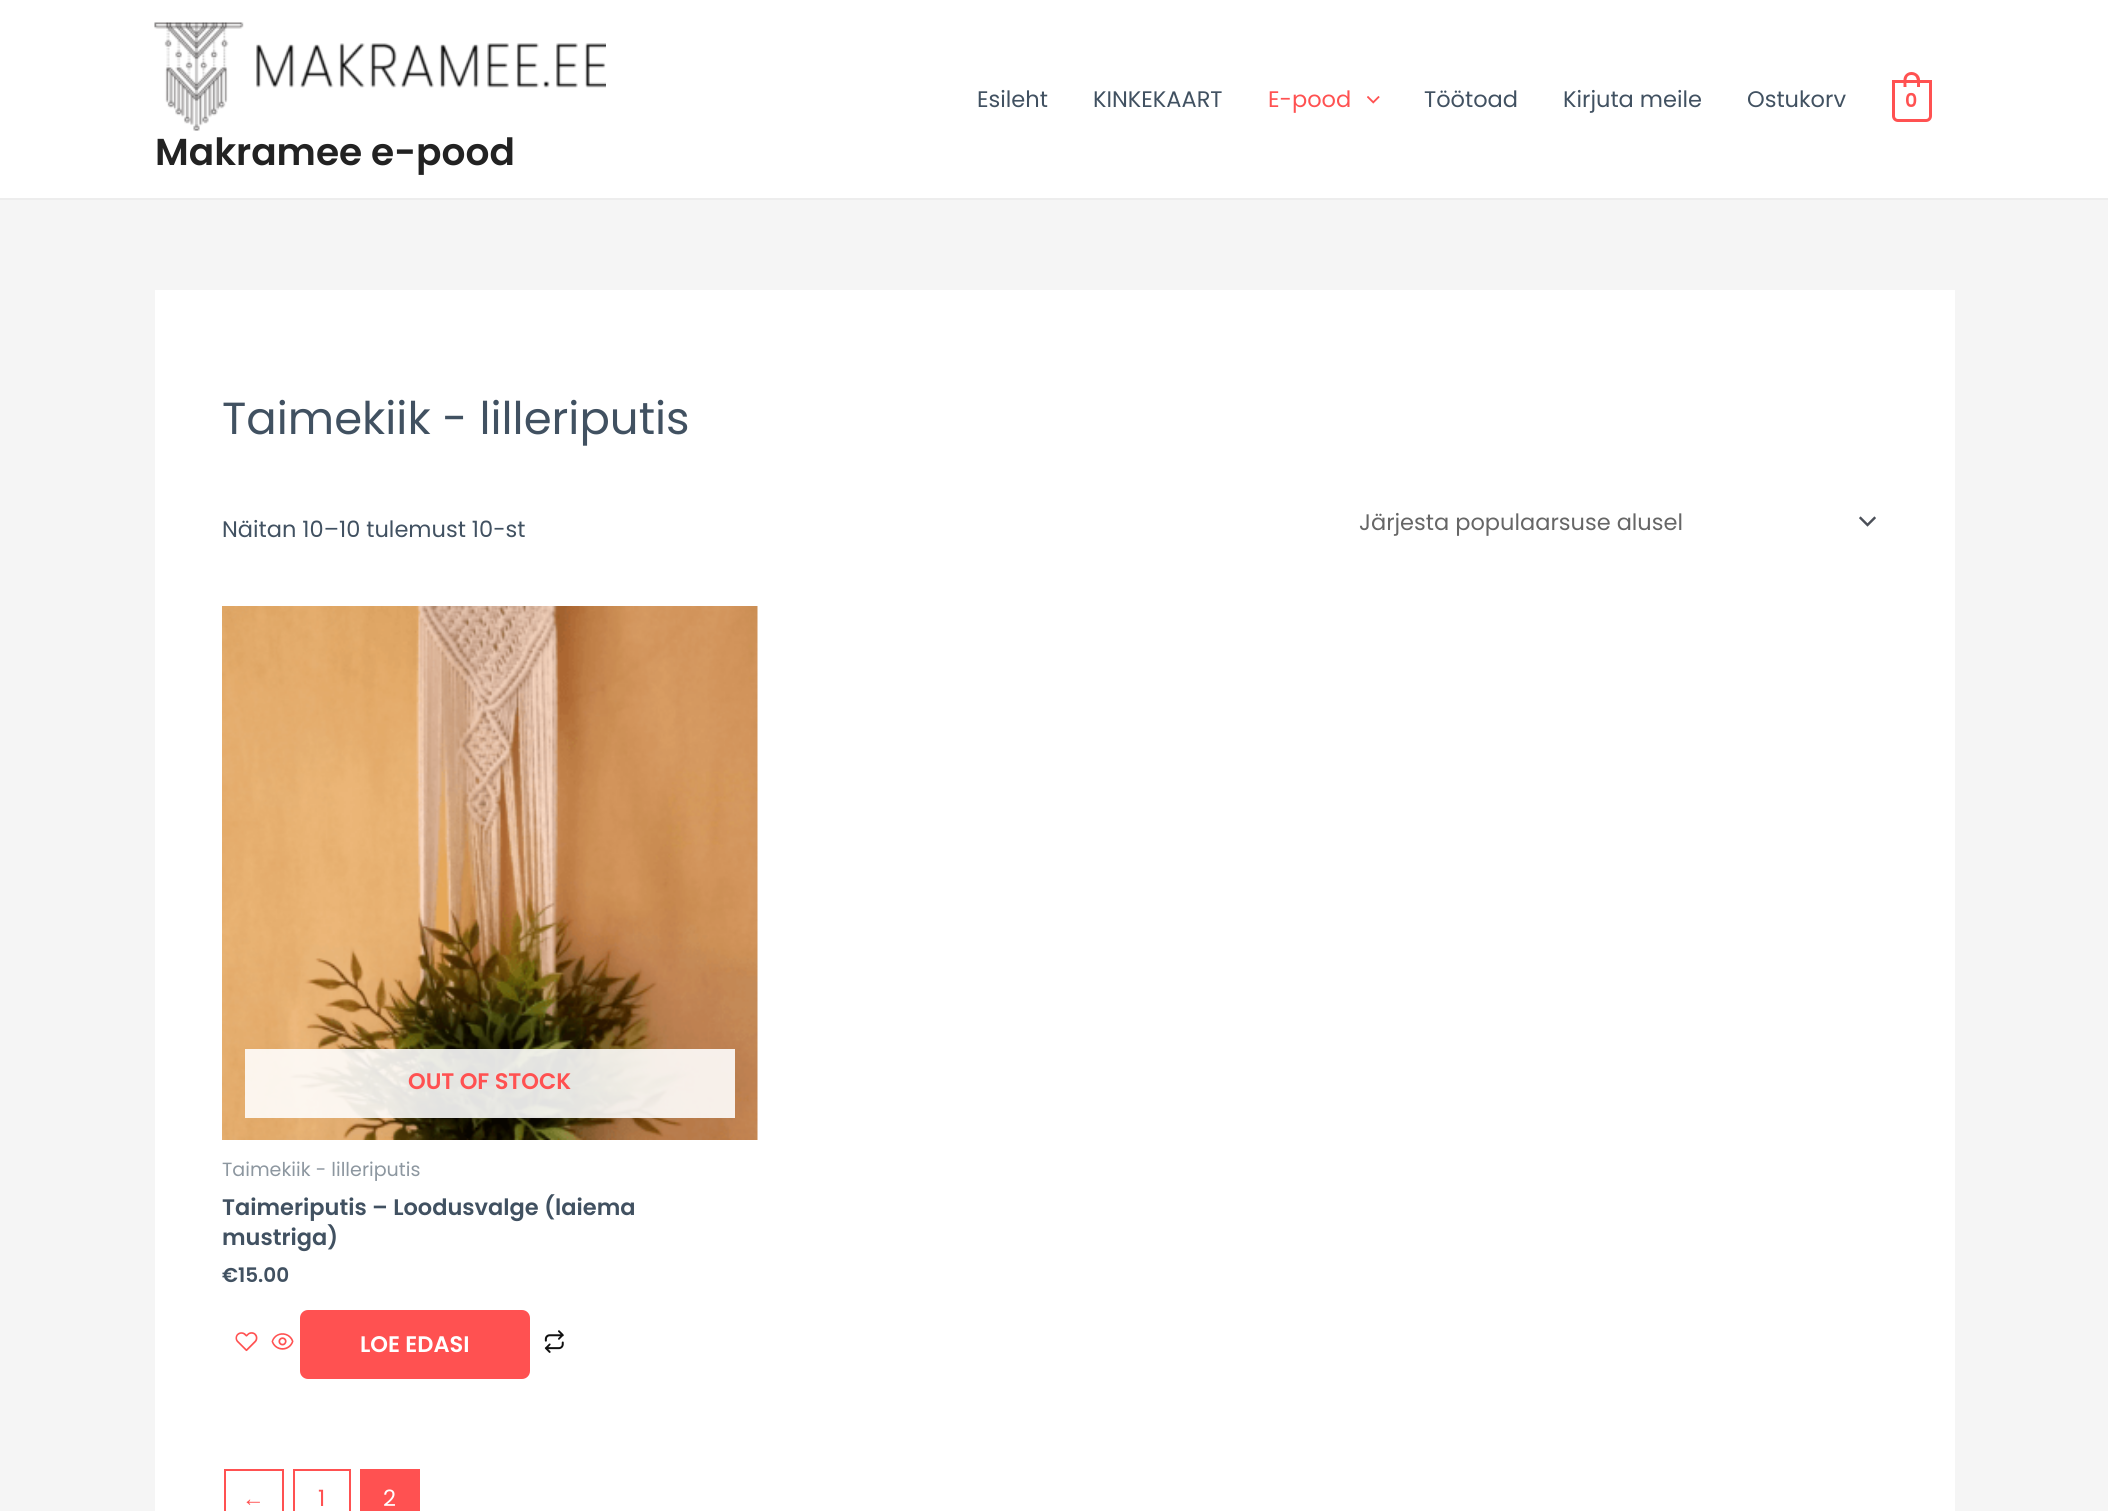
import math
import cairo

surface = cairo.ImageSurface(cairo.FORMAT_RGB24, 2108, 1511)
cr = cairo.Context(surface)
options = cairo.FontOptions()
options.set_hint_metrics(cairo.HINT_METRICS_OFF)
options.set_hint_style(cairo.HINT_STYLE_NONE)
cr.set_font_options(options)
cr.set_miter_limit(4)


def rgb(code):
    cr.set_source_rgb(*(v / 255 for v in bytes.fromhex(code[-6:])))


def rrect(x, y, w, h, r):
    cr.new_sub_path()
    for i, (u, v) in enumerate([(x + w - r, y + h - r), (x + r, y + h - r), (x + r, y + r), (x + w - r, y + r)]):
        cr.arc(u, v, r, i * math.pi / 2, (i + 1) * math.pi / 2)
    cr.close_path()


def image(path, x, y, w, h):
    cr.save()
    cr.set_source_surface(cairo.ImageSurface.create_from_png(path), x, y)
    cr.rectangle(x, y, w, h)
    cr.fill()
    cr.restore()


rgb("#f5f5f5")
cr.paint()
rgb("#ffffff")
cr.rectangle(0, 0, 2108, 198)
cr.fill()
rgb("#ededed")
cr.rectangle(0, 198, 2108, 2)
cr.fill()
image("img/1.png", 1367, 96, 13, 8)
cr.new_path()
cr.move_to(1893.5, 81.5)
cr.line_to(1930.5, 81.5)
cr.line_to(1930.5, 116)
cr.curve_to(1930.5, 118.5, 1928.5, 120.5, 1926, 120.5)
cr.line_to(1898, 120.5)
cr.curve_to(1895.5, 120.5, 1893.5, 118.5, 1893.5, 116)
cr.close_path()
rgb("#ff5151")
cr.set_line_width(3)
cr.stroke()
cr.set_fill_rule(cairo.FILL_RULE_EVEN_ODD)
cr.new_path()
cr.move_to(1911.5, 72)
cr.curve_to(1916, 72, 1920, 75.5, 1920, 80)
cr.line_to(1920, 87)
cr.line_to(1903.5, 87)
cr.line_to(1903.5, 80)
cr.curve_to(1903.5, 75.5, 1907, 72, 1911.5, 72)
cr.close_path()
cr.move_to(1911.5, 75)
cr.curve_to(1918, 75, 1917, 82.5, 1917, 87)
cr.line_to(1906.5, 87)
cr.curve_to(1906.5, 82.5, 1905, 75, 1911.5, 75)
cr.close_path()
cr.fill()
image("img/2.png", 154, 22, 452, 109)
rgb("#ffffff")
cr.rectangle(155, 290, 1800, 1221)
cr.fill()
image("img/3.png", 1859, 516, 17, 11)
image("img/4.png", 222, 606, 536, 534)
cr.set_source_rgba(1, 1, 1, 0.88)
cr.rectangle(245, 1049, 490, 69)
cr.fill()
image("img/5.png", 235, 1332, 23, 20)
image("img/6.png", 271, 1333, 23, 17)
rgb("#ff5151")
rrect(300, 1310, 230, 69, 8)
cr.fill()
image("img/7.png", 544, 1330, 20, 23)
cr.rectangle(225, 1470, 58, 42)
cr.set_line_width(2)
cr.stroke()
cr.rectangle(294, 1470, 56, 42)
cr.stroke()
cr.rectangle(361, 1470, 58, 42)
cr.stroke()
cr.rectangle(362, 1471, 56, 40)
cr.fill()
cr.select_font_face("Poppins")
cr.set_font_size(22.5)
rgb("#415161")
cr.move_to(977, 107)
cr.show_text("Esileht")
cr.move_to(1093, 107)
cr.show_text("KINKEKAART")
rgb("#ff5151")
cr.move_to(1268, 107)
cr.show_text("E-pood")
rgb("#415161")
for x, y, s in [
    (1424, 107, "Töötoad"),
    (1563, 107, "Kirjuta meile"),
    (1747, 107, "Ostukorv"),
]:
    cr.move_to(x, y)
    cr.show_text(s)
cr.select_font_face("Poppins SemiBold")
cr.set_font_size(19)
rgb("#ff5151")
cr.move_to(1905, 107)
cr.show_text("0")
cr.set_font_size(37.5)
rgb("#222222")
cr.move_to(155, 165)
cr.show_text("Makramee e-pood")
cr.select_font_face("Poppins")
cr.set_font_size(45)
rgb("#415161")
cr.move_to(222, 434)
cr.show_text("Taimekiik - lilleriputis")
cr.set_font_size(22.5)
cr.move_to(222, 537)
cr.show_text("Näitan 10–10 tulemust 10-st")
rgb("#666666")
cr.move_to(1359, 530)
cr.show_text("Järjesta populaarsuse alusel")
cr.select_font_face("Poppins SemiBold")
rgb("#ff5151")
cr.move_to(408, 1089)
cr.show_text("OUT OF STOCK")
cr.select_font_face("Poppins")
cr.set_font_size(19.1)
rgb("#8d97a0")
cr.move_to(222, 1176)
cr.show_text("Taimekiik - lilleriputis")
cr.select_font_face("Poppins SemiBold")
cr.set_font_size(22.5)
rgb("#415161")
cr.move_to(222, 1215)
cr.show_text("Taimeriputis – Loodusvalge (laiema")
cr.move_to(222, 1245)
cr.show_text("mustriga)")
cr.set_font_size(20)
cr.move_to(222, 1282)
cr.show_text("€15.00")
cr.set_font_size(22.5)
rgb("#ffffff")
cr.move_to(360, 1352)
cr.show_text("LOE EDASI")
cr.select_font_face("Liberation Sans")
rgb("#ff5151")
cr.move_to(242, 1506)
cr.show_text("←")
cr.select_font_face("Poppins")
cr.move_to(318, 1506)
cr.show_text("1")
rgb("#ffffff")
cr.move_to(383, 1506)
cr.show_text("2")
surface.write_to_png("page.png")
